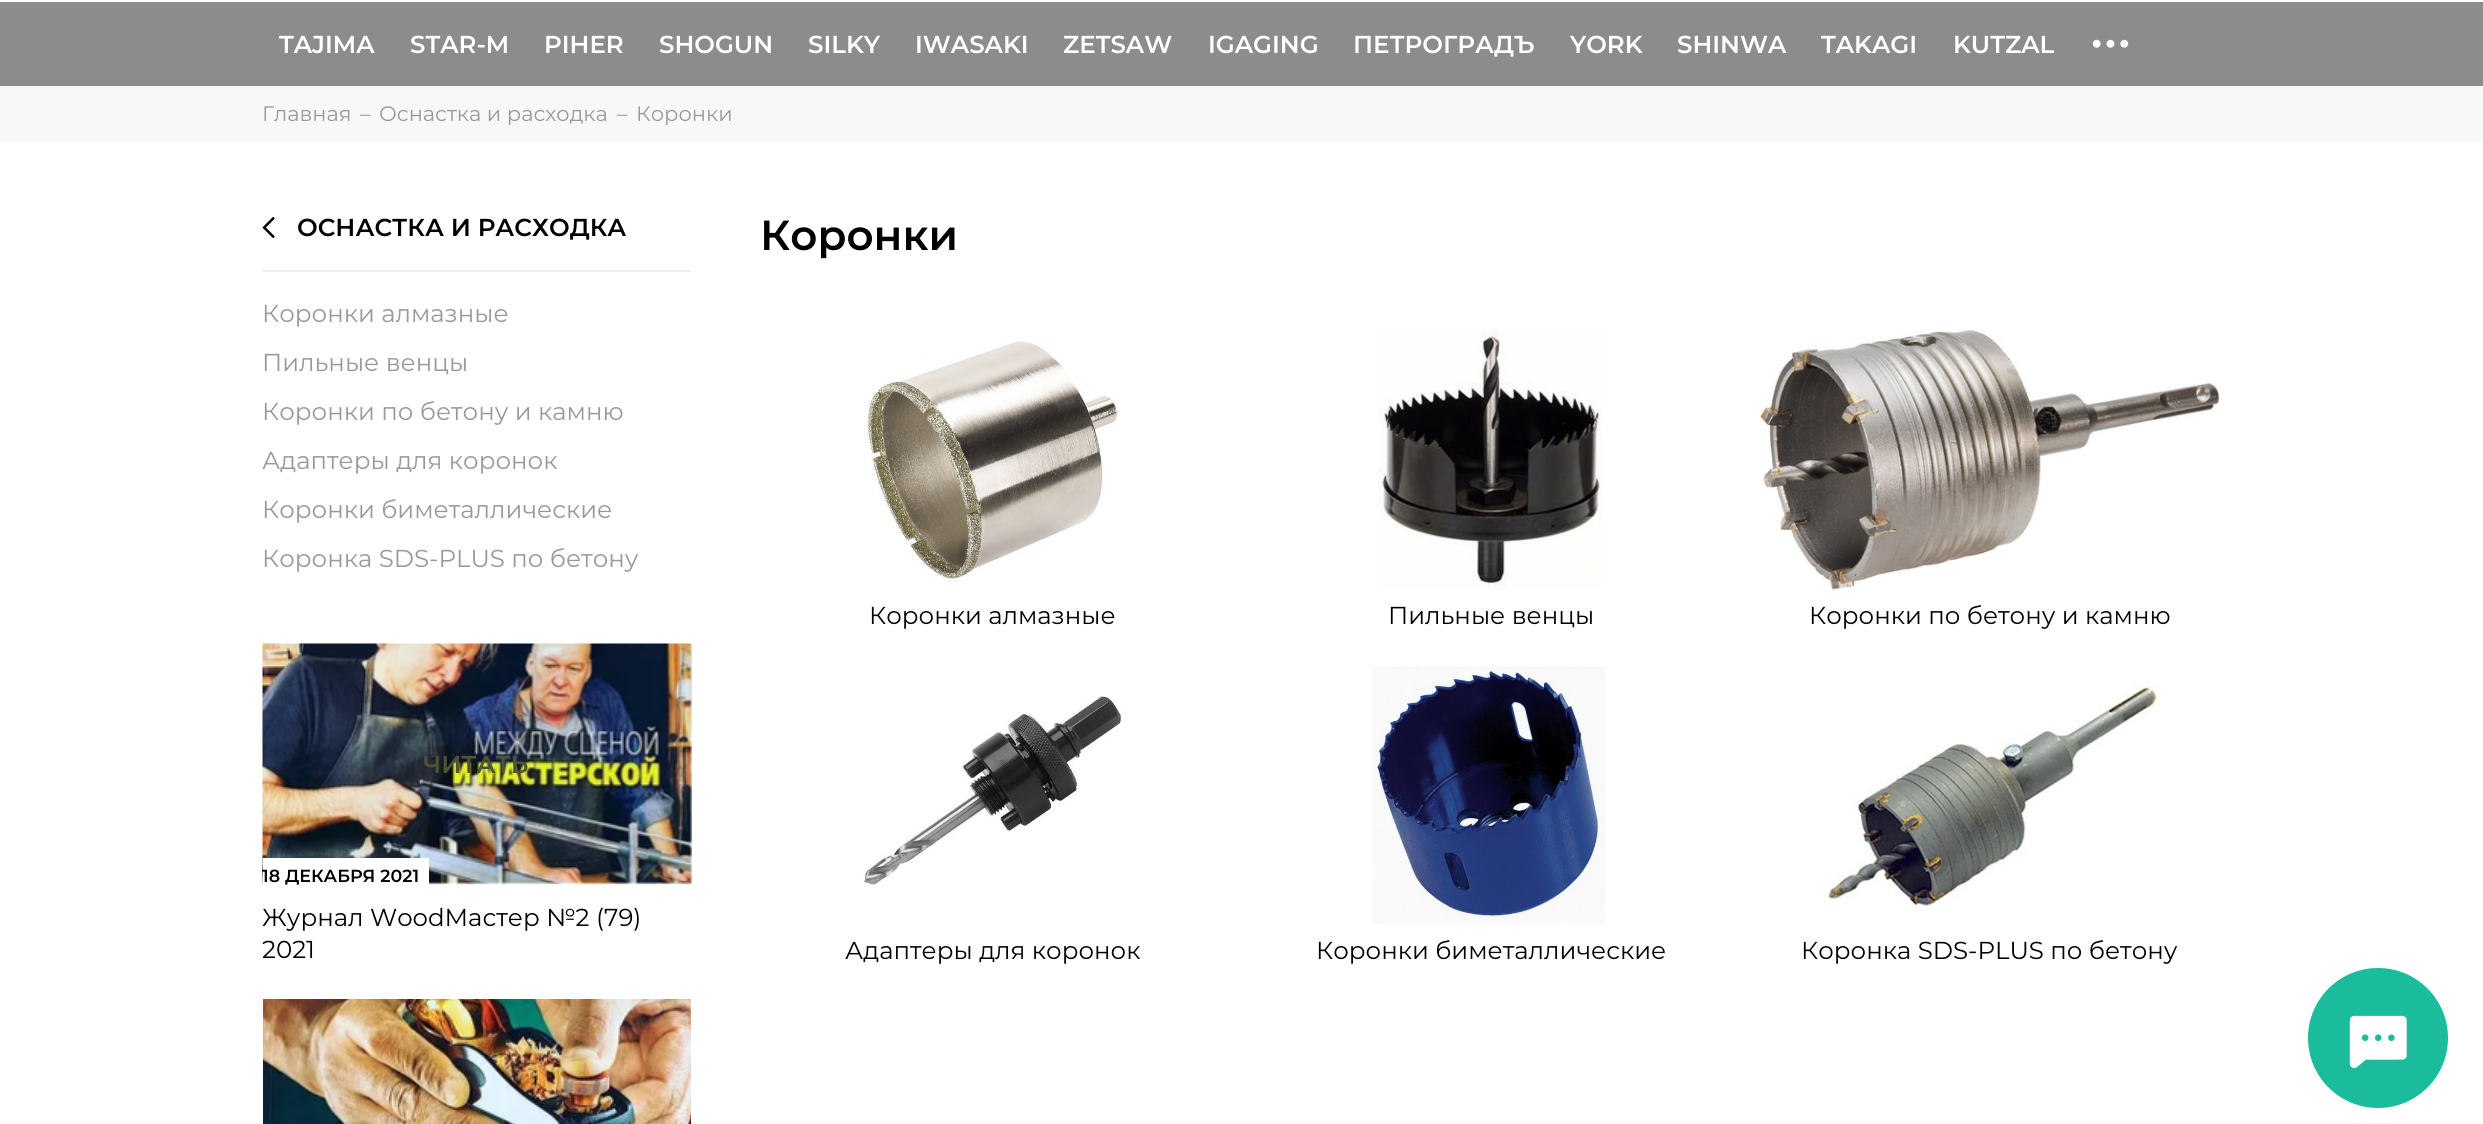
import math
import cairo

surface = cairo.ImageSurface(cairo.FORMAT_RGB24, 2483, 1124)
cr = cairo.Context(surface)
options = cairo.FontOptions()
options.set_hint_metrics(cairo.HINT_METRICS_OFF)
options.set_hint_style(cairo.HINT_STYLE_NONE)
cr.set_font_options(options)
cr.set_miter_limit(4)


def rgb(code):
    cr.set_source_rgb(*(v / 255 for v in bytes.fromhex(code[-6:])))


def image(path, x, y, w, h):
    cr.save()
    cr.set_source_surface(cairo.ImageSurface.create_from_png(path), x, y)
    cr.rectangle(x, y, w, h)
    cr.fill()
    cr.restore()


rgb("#ffffff")
cr.paint()
rgb("#8c8c8c")
cr.rectangle(0, 2, 2483, 84)
cr.fill()
image("img/1.png", 2092, 39, 37, 9)
rgb("#f7f8fa")
cr.rectangle(0, 86, 2483, 56)
cr.fill()
rgb("#eeeeee")
cr.rectangle(263, 270, 428, 2)
cr.fill()
image("img/2.png", 262, 217, 13, 21)
image("img/3.png", 262, 643, 430, 242)
rgb("#ffffff")
cr.rectangle(263, 858, 166, 27)
cr.fill()
image("img/4.png", 263, 999, 428, 125)
image("img/5.png", 867, 340, 251, 240)
image("img/6.png", 1377, 330, 227, 259)
image("img/7.png", 1760, 330, 459, 260)
image("img/8.png", 863, 696, 259, 190)
image("img/9.png", 1372, 664, 234, 260)
image("img/10.png", 1823, 683, 336, 228)
rgb("#1abc9c")
cr.arc(2378, 1038, 70, 0, 2 * math.pi)
cr.fill()
image("img/11.png", 2349, 1015, 58, 53)
cr.select_font_face("Montserrat SemiBold")
cr.set_font_size(24.5)
rgb("#ffffff")
for x, y, s in [
    (279, 53, "TAJIMA"),
    (410, 53, "STAR-M"),
    (544, 53, "PIHER"),
    (659, 53, "SHOGUN"),
    (808, 53, "SILKY"),
    (915, 53, "IWASAKI"),
    (1063, 53, "ZETSAW"),
    (1208, 53, "IGAGING"),
    (1353, 53, "ПЕТРОГРАДЪ"),
    (1570, 53, "YORK"),
    (1677, 53, "SHINWA"),
    (1821, 53, "TAKAGI"),
    (1953, 53, "KUTZAL"),
]:
    cr.move_to(x, y)
    cr.show_text(s)
cr.select_font_face("Montserrat")
cr.set_font_size(21)
rgb("#999999")
for x, y, s in [
    (262, 121, "Главная"),
    (360, 121, "–"),
    (379, 121, "Оснастка и расходка"),
    (617, 121, "–"),
    (636, 121, "Коронки"),
]:
    cr.move_to(x, y)
    cr.show_text(s)
cr.select_font_face("Montserrat SemiBold")
cr.set_font_size(24.5)
rgb("#000000")
cr.move_to(297, 236)
cr.show_text("ОСНАСТКА И РАСХОДКА")
cr.select_font_face("Montserrat")
rgb("#999999")
for x, y, s in [
    (262, 322, "Коронки алмазные"),
    (262, 371, "Пильные венцы"),
    (262, 420, "Коронки по бетону и камню"),
    (262, 469, "Адаптеры для коронок"),
    (262, 518, "Коронки биметаллические"),
    (262, 567, "Коронка SDS-PLUS по бетону"),
]:
    cr.move_to(x, y)
    cr.show_text(s)
cr.select_font_face("Montserrat SemiBold")
rgb("#4c5430")
cr.move_to(423, 773)
cr.show_text("ЧИТАТЬ")
cr.set_font_size(17.5)
rgb("#000000")
cr.move_to(262, 882)
cr.show_text("18 ДЕКАБРЯ 2021")
cr.select_font_face("Montserrat")
cr.set_font_size(24.5)
cr.move_to(262, 926)
cr.show_text("Журнал WoodМастер №2 (79)")
cr.move_to(262, 958)
cr.show_text("2021")
cr.select_font_face("Montserrat SemiBold")
cr.set_font_size(42)
cr.move_to(760, 250)
cr.show_text("Коронки")
cr.select_font_face("Montserrat")
cr.set_font_size(24.5)
for x, y, s in [
    (869, 624, "Коронки алмазные"),
    (1388, 624, "Пильные венцы"),
    (1809, 624, "Коронки по бетону и камню"),
    (845, 959, "Адаптеры для коронок"),
    (1316, 959, "Коронки биметаллические"),
    (1801, 959, "Коронка SDS-PLUS по бетону"),
]:
    cr.move_to(x, y)
    cr.show_text(s)
surface.write_to_png("page.png")
